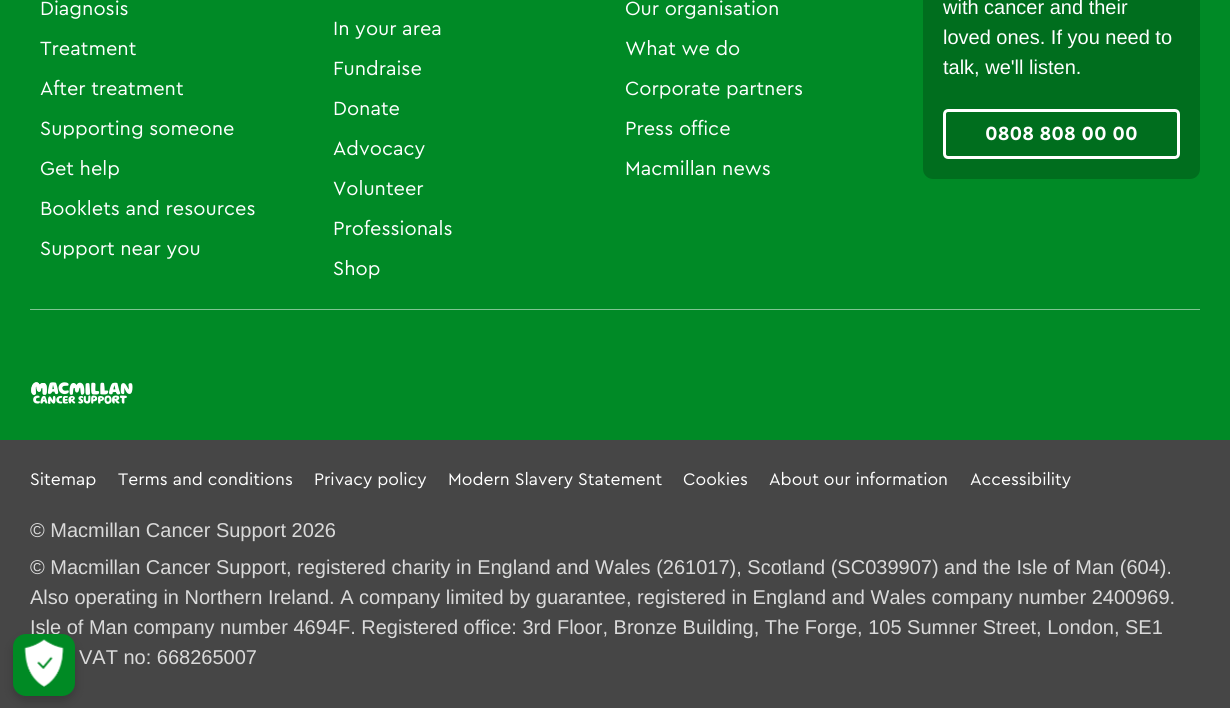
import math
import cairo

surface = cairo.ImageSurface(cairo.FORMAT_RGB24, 1230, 708)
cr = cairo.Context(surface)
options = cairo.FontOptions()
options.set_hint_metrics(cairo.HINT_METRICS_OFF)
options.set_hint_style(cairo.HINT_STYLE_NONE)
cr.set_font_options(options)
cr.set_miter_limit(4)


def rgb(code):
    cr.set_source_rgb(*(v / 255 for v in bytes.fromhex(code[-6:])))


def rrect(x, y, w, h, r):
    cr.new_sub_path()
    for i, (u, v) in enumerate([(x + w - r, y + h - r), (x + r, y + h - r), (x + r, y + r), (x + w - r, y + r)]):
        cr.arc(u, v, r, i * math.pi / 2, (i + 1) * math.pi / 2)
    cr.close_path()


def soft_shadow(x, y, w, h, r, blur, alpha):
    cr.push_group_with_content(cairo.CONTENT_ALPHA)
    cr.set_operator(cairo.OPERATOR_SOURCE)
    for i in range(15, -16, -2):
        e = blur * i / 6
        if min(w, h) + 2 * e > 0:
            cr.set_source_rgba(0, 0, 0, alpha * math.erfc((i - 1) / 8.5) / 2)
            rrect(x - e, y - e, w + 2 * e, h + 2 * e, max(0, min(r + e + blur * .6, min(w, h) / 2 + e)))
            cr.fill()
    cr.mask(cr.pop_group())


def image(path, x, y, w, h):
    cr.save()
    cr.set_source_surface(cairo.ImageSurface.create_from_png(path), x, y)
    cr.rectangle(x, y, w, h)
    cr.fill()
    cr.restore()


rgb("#008a26")
cr.paint()
rgb("#80c593")
cr.rectangle(30, 309, 1170, 1)
cr.fill()
rgb("#006e1e")
rrect(923, -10, 277, 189, 10)
cr.fill()
rrect(944.5, 110.5, 234, 47, 3.5)
rgb("#ffffff")
cr.set_line_width(3)
cr.stroke()
image("img/1.png", 31, 382, 102, 22)
rgb("#464646")
cr.rectangle(0, 440, 1230, 268)
cr.fill()
rgb("#000000")
soft_shadow(13, 639, 62, 62, 13, 5, 0.2)
cr.select_font_face("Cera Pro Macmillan")
cr.set_font_size(20)
rgb("#ffffff")
for x, y, s in [
    (40, 15, "Diagnosis"),
    (40, 55, "Treatment"),
    (40, 95, "After treatment"),
    (40, 135, "Supporting someone"),
    (40, 175, "Get help"),
    (40, 215, "Booklets and resources"),
    (40, 255, "Support near you"),
    (333, 35, "In your area"),
    (333, 75, "Fundraise"),
    (333, 115, "Donate"),
    (333, 155, "Advocacy"),
    (333, 195, "Volunteer"),
    (333, 235, "Professionals"),
    (333, 275, "Shop"),
    (625, 15, "Our organisation"),
    (625, 55, "What we do"),
    (625, 95, "Corporate partners"),
    (625, 135, "Press office"),
    (625, 175, "Macmillan news"),
]:
    cr.move_to(x, y)
    cr.show_text(s)
cr.select_font_face("Liberation Sans")
for x, y, s in [
    (943, 14, "with cancer and their"),
    (943, 44, "loved ones. If you need to"),
    (943, 74, "talk, we'll listen."),
]:
    cr.move_to(x, y)
    cr.show_text(s)
cr.select_font_face("Cera Pro Macmillan", cairo.FONT_SLANT_NORMAL, cairo.FONT_WEIGHT_BOLD)
cr.move_to(985, 140)
cr.show_text("0808 808 00 00")
cr.select_font_face("Cera Pro Macmillan")
cr.set_font_size(17.5)
for x, y, s in [
    (30, 485, "Sitemap"),
    (118, 485, "Terms and conditions"),
    (314, 485, "Privacy policy"),
    (448, 485, "Modern Slavery Statement"),
    (683, 485, "Cookies"),
    (769, 485, "About our information"),
    (970, 485, "Accessibility"),
]:
    cr.move_to(x, y)
    cr.show_text(s)
cr.select_font_face("Liberation Sans")
cr.set_font_size(20)
rgb("#dadada")
for x, y, s in [
    (30, 537, "© Macmillan Cancer Support 2026"),
    (30, 574, "© Macmillan Cancer Support, registered charity in England and Wales (261017), Scotland (SC039907) and the Isle of Man (604)."),
    (30, 604, "Also operating in Northern Ireland. A company limited by guarantee, registered in England and Wales company number 2400969."),
    (30, 634, "Isle of Man company number 4694F. Registered office: 3rd Floor, Bronze Building, The Forge, 105 Sumner Street, London, SE1"),
    (79, 664, "VAT no: 668265007"),
]:
    cr.move_to(x, y)
    cr.show_text(s)
rgb("#008a24")
rrect(13, 634, 62, 62, 13)
cr.fill()
image("img/2.png", 24, 639, 40, 48)
surface.write_to_png("page.png")
